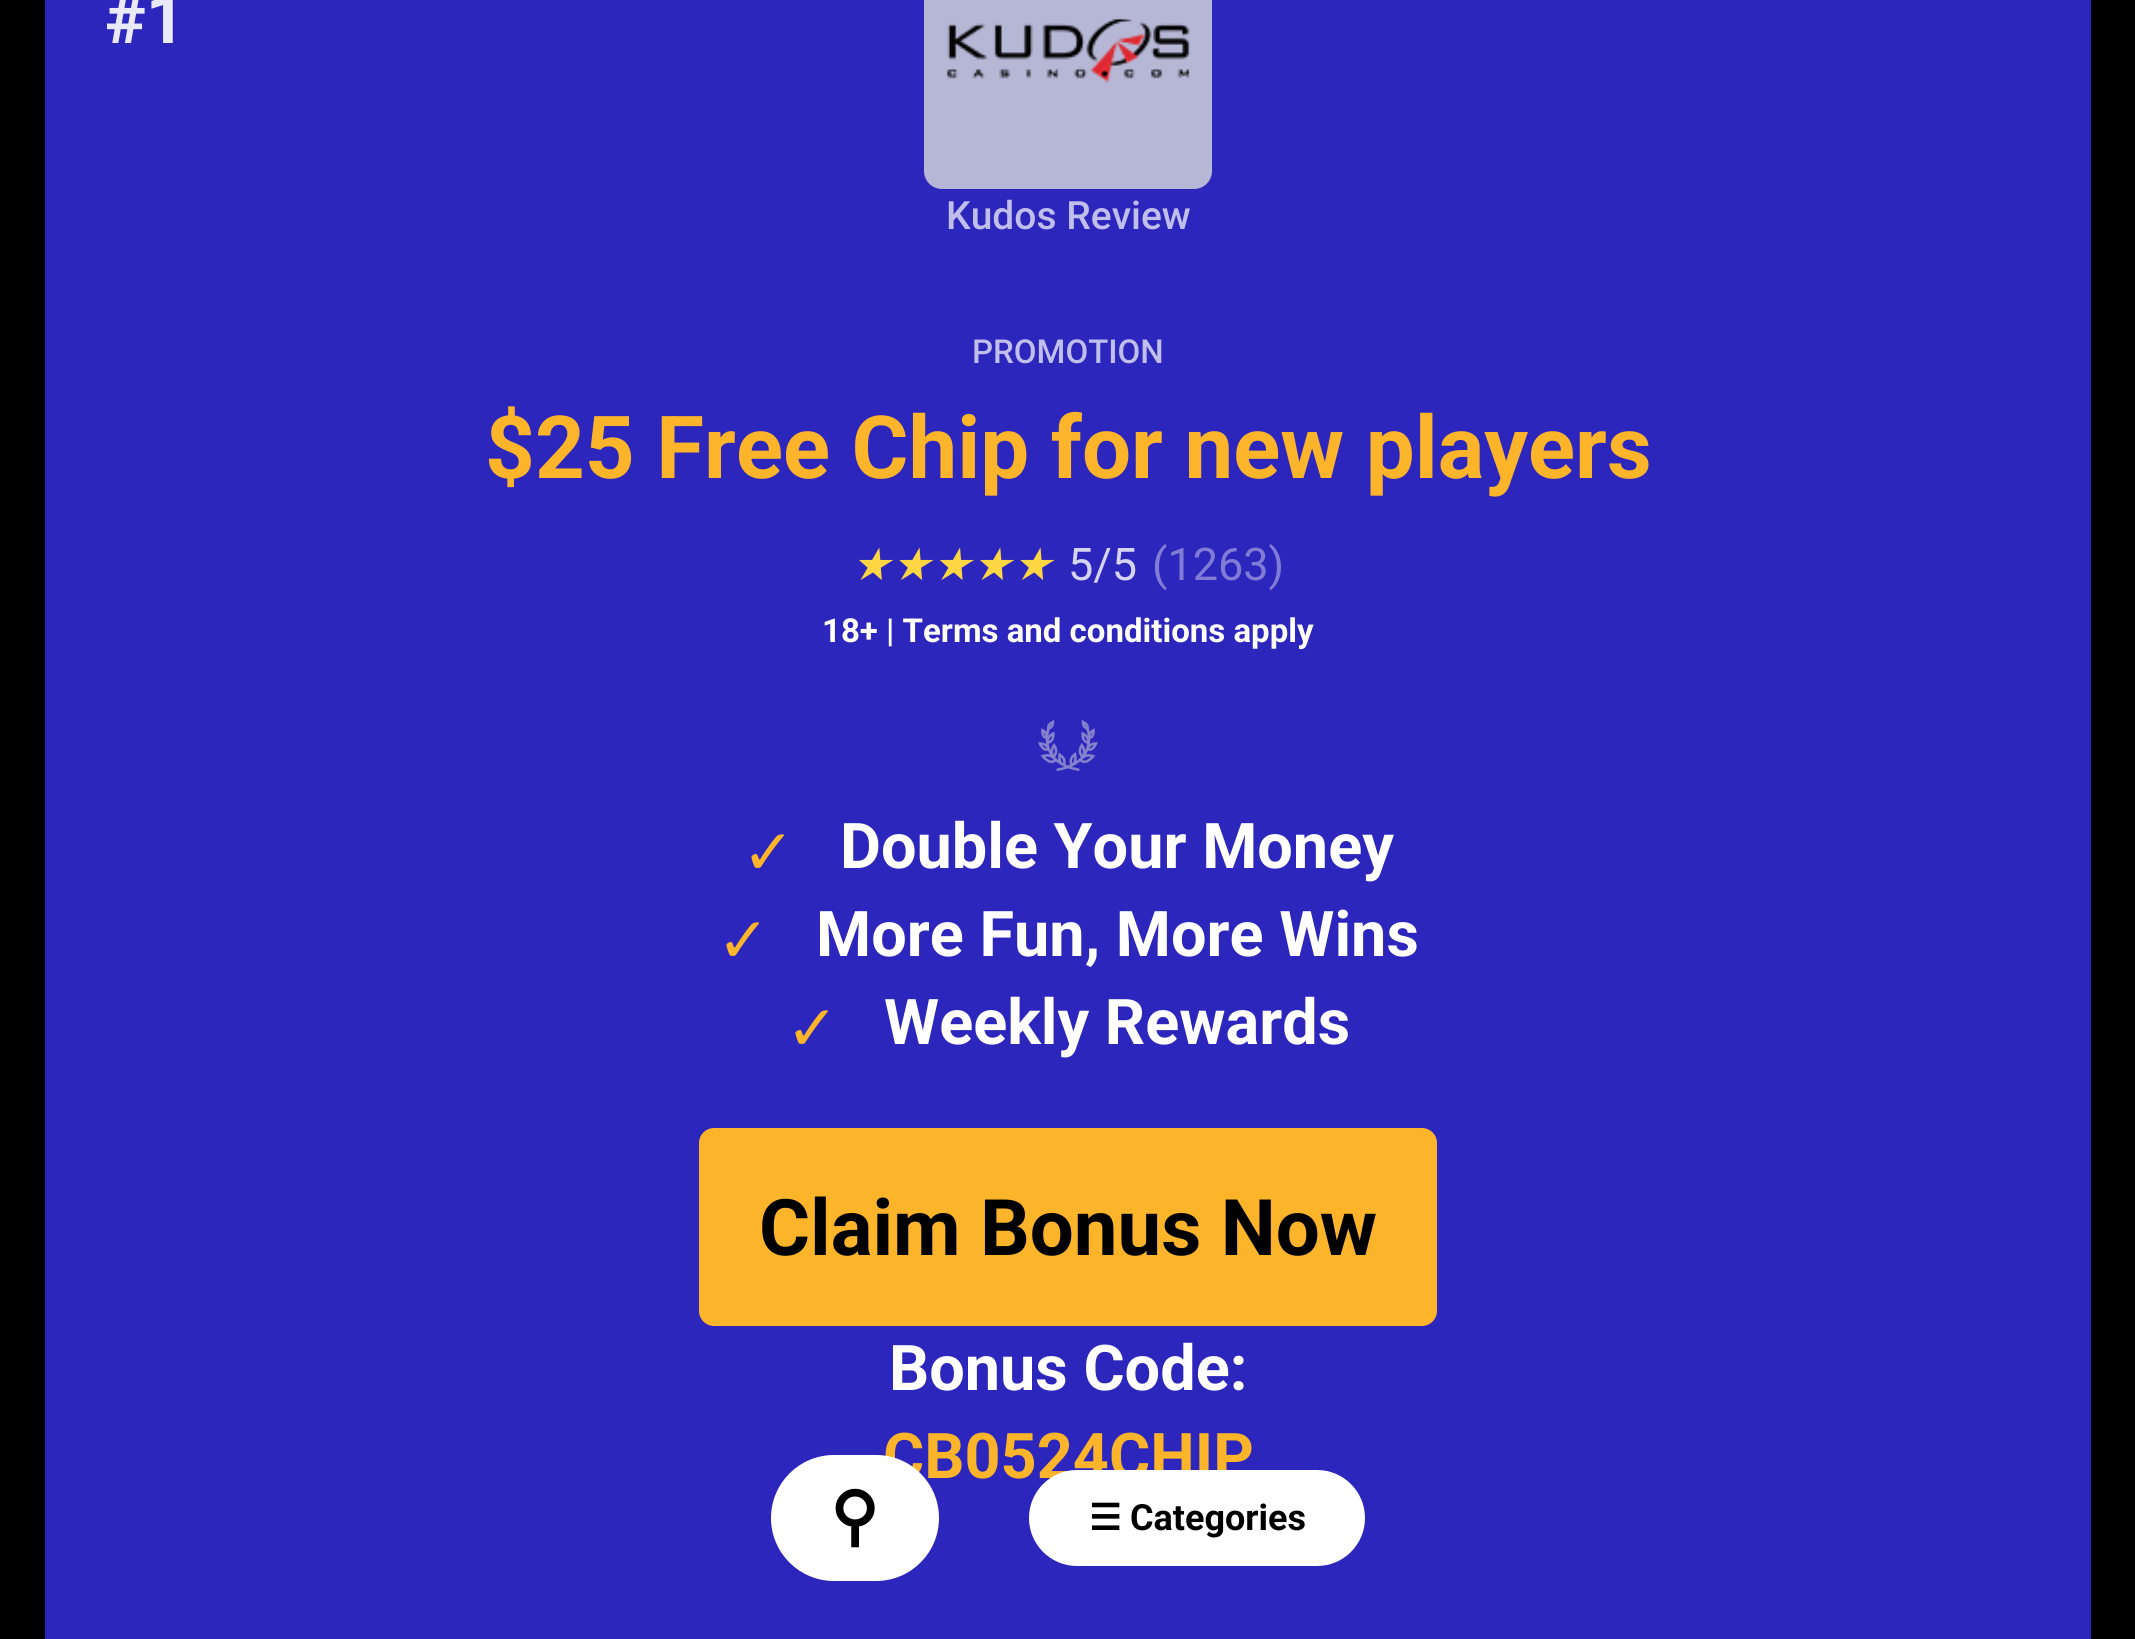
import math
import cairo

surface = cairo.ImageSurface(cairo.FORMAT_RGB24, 2135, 1639)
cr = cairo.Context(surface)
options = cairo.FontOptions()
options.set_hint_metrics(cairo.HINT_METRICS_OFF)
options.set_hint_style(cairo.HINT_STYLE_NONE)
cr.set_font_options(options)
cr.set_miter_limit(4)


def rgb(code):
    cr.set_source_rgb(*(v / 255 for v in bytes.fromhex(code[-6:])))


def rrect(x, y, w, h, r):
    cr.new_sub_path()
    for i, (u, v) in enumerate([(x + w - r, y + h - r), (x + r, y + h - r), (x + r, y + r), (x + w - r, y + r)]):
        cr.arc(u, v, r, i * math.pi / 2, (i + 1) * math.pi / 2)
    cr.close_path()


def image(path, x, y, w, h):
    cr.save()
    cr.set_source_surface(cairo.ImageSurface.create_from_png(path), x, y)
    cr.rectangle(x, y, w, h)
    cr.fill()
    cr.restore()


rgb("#000000")
cr.paint()
rgb("#2d26bc")
cr.rectangle(45, 0, 2046, 1639)
cr.fill()
rgb("#b6b7d5")
rrect(924, -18, 288, 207, 18)
cr.fill()
image("img/1.png", 946, 18, 244, 65)
image("img/2.png", 1038, 720, 60, 51)
rgb("#fcb42a")
rrect(699, 1128, 738, 198, 15)
cr.fill()
cr.select_font_face("Roboto", cairo.FONT_SLANT_NORMAL, cairo.FONT_WEIGHT_BOLD)
cr.set_font_size(69)
rgb("#eae9f8")
cr.move_to(105, 43)
cr.show_text("#1")
cr.select_font_face("Roboto Medium")
cr.set_font_size(39)
rgb("#c0beeb")
cr.move_to(946, 229)
cr.show_text("Kudos Review")
cr.set_font_size(33)
cr.move_to(972, 363)
cr.show_text("PROMOTION")
cr.select_font_face("Roboto", cairo.FONT_SLANT_NORMAL, cairo.FONT_WEIGHT_BOLD)
cr.set_font_size(87)
rgb("#fcb42a")
cr.move_to(485, 478)
cr.show_text("$25 Free Chip for new players")
cr.select_font_face("DejaVu Sans", cairo.FONT_SLANT_ITALIC)
cr.set_font_size(45)
rgb("#fed643")
cr.move_to(851, 580)
cr.show_text("★★★★★")
cr.select_font_face("Roboto")
rgb("#d5d4f2")
cr.move_to(1068, 580)
cr.show_text("5/5")
rgb("#817dd7")
cr.move_to(1152, 580)
cr.show_text("(1263)")
cr.select_font_face("Roboto", cairo.FONT_SLANT_NORMAL, cairo.FONT_WEIGHT_BOLD)
cr.set_font_size(33)
rgb("#ffffff")
cr.move_to(822, 642)
cr.show_text("18+ | Terms and conditions apply")
cr.select_font_face("DejaVu Sans")
cr.set_font_size(63)
rgb("#fcb42a")
cr.move_to(742, 874)
cr.show_text("✓")
cr.select_font_face("Roboto", cairo.FONT_SLANT_NORMAL, cairo.FONT_WEIGHT_BOLD)
rgb("#ffffff")
cr.move_to(840, 868)
cr.show_text("Double Your Money")
cr.select_font_face("DejaVu Sans")
rgb("#fcb42a")
cr.move_to(717, 962)
cr.show_text("✓")
cr.select_font_face("Roboto", cairo.FONT_SLANT_NORMAL, cairo.FONT_WEIGHT_BOLD)
rgb("#ffffff")
cr.move_to(816, 956)
cr.show_text("More Fun, More Wins")
cr.select_font_face("DejaVu Sans")
rgb("#fcb42a")
cr.move_to(786, 1050)
cr.show_text("✓")
cr.select_font_face("Roboto", cairo.FONT_SLANT_NORMAL, cairo.FONT_WEIGHT_BOLD)
rgb("#ffffff")
cr.move_to(884, 1044)
cr.show_text("Weekly Rewards")
cr.set_font_size(78)
rgb("#000000")
cr.move_to(759, 1255)
cr.show_text("Claim Bonus Now")
cr.set_font_size(63)
rgb("#ffffff")
cr.move_to(889, 1390)
cr.show_text("Bonus Code:")
rgb("#fcb42a")
cr.move_to(883, 1478)
cr.show_text("CB0524CHIP")
rgb("#ffffff")
rrect(771, 1455, 168, 126, 63)
cr.fill()
cr.select_font_face("DejaVu Sans", cairo.FONT_SLANT_NORMAL, cairo.FONT_WEIGHT_BOLD)
cr.set_font_size(66)
rgb("#000000")
cr.move_to(830, 1539)
cr.show_text("⚲")
rgb("#ffffff")
rrect(1029, 1470, 336, 96, 48)
cr.fill()
cr.set_font_size(36)
rgb("#000000")
cr.move_to(1089, 1530)
cr.show_text("☰")
cr.select_font_face("Roboto", cairo.FONT_SLANT_NORMAL, cairo.FONT_WEIGHT_BOLD)
cr.move_to(1130, 1530)
cr.show_text("Categories")
surface.write_to_png("page.png")
